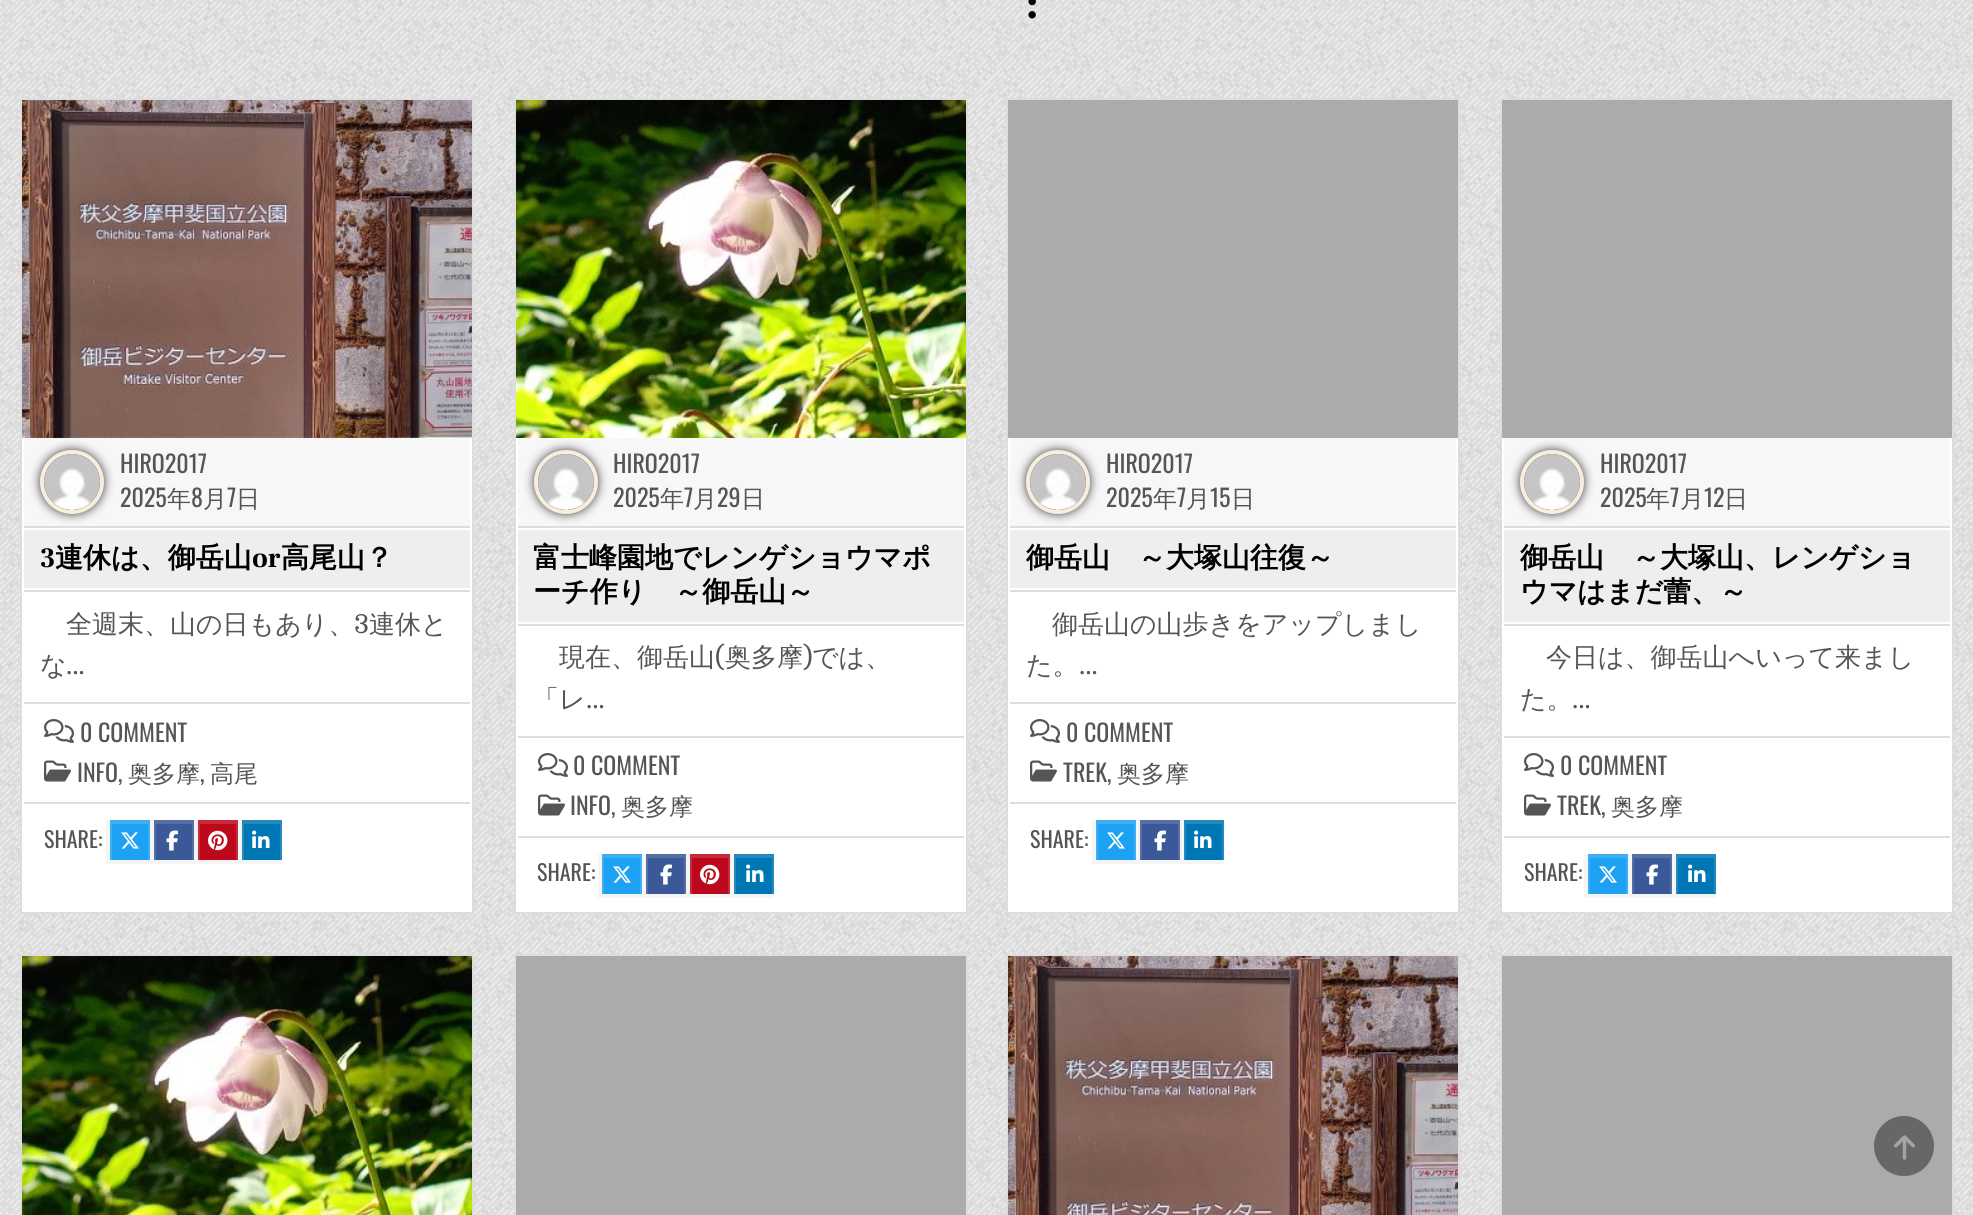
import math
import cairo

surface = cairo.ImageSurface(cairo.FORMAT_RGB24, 1973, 1215)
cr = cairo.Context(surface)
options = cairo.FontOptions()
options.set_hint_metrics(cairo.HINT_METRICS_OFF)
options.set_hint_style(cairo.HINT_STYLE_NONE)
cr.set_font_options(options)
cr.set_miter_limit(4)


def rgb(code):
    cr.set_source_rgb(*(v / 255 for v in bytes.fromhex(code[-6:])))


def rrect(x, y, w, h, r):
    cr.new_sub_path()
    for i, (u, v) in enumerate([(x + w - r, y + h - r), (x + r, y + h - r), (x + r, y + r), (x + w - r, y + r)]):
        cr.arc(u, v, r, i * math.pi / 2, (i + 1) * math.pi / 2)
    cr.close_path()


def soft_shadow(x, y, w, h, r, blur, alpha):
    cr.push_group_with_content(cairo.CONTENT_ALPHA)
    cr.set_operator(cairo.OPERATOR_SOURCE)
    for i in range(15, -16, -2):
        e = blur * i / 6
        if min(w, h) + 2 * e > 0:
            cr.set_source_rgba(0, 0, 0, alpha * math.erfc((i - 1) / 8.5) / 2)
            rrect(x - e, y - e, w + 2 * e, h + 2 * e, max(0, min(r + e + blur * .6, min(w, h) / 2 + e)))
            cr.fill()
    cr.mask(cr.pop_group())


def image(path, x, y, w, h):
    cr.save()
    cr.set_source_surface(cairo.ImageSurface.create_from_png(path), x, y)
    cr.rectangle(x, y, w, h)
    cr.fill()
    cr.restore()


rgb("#ffffff")
cr.paint()
image("img/1.png", 0, 0, 1973, 1215)
rgb("#ffffff")
cr.rectangle(22, 438, 450, 474)
cr.fill()
cr.rectangle(21, 99, 452, 814)
rgb("#dddddd")
cr.stroke()
image("img/2.png", 22, 100, 450, 338)
rgb("#f7f7f7")
cr.rectangle(24, 438, 446, 88)
cr.fill()
rgb("#dddddd")
cr.rectangle(24, 526, 446, 2)
cr.fill()
rgb("#444444")
soft_shadow(40, 450, 64, 64, 32, 5, 1)
cr.arc(72, 482, 30, 0, 2 * math.pi)
rgb("#f7efdc")
cr.set_line_width(4)
cr.stroke()
image("img/3.png", 44, 454, 56, 56)
for x, y, w, h, color in [
    (24, 530, 446, 58, "#eeeeee"),
    (24, 590, 446, 2, "#dddddd"),
    (24, 702, 446, 2, "#dddddd"),
    (24, 802, 446, 2, "#dddddd"),
]:
    rgb(color)
    cr.rectangle(x, y, w, h)
    cr.fill()
image("img/4.png", 44, 719, 30, 24)
image("img/5.png", 44, 760, 27, 22)
rgb("#f5f5f5")
cr.new_path()
cr.move_to(106, 820)
cr.line_to(106, 864)
cr.line_to(150, 864)
cr.line_to(150, 860)
cr.line_to(110, 860)
cr.line_to(110, 820)
cr.close_path()
cr.fill()
rgb("#1da1f2")
cr.rectangle(112, 824, 36, 36)
cr.fill()
cr.save()
cr.rectangle(110, 820, 40, 40)
cr.clip()
rgb("#3daef4")
cr.set_fill_rule(cairo.FILL_RULE_EVEN_ODD)
cr.new_path()
cr.move_to(-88, 622)
cr.line_to(348, 622)
cr.line_to(348, 1058)
cr.line_to(-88, 1058)
cr.close_path()
cr.move_to(112, 824)
cr.line_to(148, 824)
cr.line_to(148, 860)
cr.line_to(112, 860)
cr.close_path()
cr.fill()
cr.restore()
image("img/6.png", 121, 832, 18, 17)
rgb("#f5f5f5")
cr.new_path()
cr.move_to(150, 820)
cr.line_to(150, 864)
cr.line_to(194, 864)
cr.line_to(194, 860)
cr.line_to(154, 860)
cr.line_to(154, 820)
cr.close_path()
cr.fill()
rgb("#3b5998")
cr.rectangle(156, 824, 36, 36)
cr.fill()
cr.save()
cr.rectangle(154, 820, 40, 40)
cr.clip()
rgb("#5670a6")
cr.set_fill_rule(cairo.FILL_RULE_EVEN_ODD)
cr.new_path()
cr.move_to(-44, 622)
cr.line_to(392, 622)
cr.line_to(392, 1058)
cr.line_to(-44, 1058)
cr.close_path()
cr.move_to(156, 824)
cr.line_to(192, 824)
cr.line_to(192, 860)
cr.line_to(156, 860)
cr.close_path()
cr.fill()
cr.restore()
image("img/7.png", 166, 830, 12, 21)
rgb("#f5f5f5")
cr.new_path()
cr.move_to(194, 820)
cr.line_to(194, 864)
cr.line_to(238, 864)
cr.line_to(238, 860)
cr.line_to(198, 860)
cr.line_to(198, 820)
cr.close_path()
cr.fill()
rgb("#bd081c")
cr.rectangle(200, 824, 36, 36)
cr.fill()
cr.save()
cr.rectangle(198, 820, 40, 40)
cr.clip()
rgb("#c62b3c")
cr.set_fill_rule(cairo.FILL_RULE_EVEN_ODD)
cr.new_path()
cr.move_to(0, 622)
cr.line_to(436, 622)
cr.line_to(436, 1058)
cr.line_to(0, 1058)
cr.close_path()
cr.move_to(200, 824)
cr.line_to(236, 824)
cr.line_to(236, 860)
cr.line_to(200, 860)
cr.close_path()
cr.fill()
cr.restore()
image("img/8.png", 208, 830, 20, 21)
rgb("#f5f5f5")
cr.new_path()
cr.move_to(238, 820)
cr.line_to(238, 864)
cr.line_to(282, 864)
cr.line_to(282, 860)
cr.line_to(242, 860)
cr.line_to(242, 820)
cr.close_path()
cr.fill()
rgb("#0077b5")
cr.rectangle(244, 824, 36, 36)
cr.fill()
cr.save()
cr.rectangle(242, 820, 40, 40)
cr.clip()
rgb("#248abf")
cr.set_fill_rule(cairo.FILL_RULE_EVEN_ODD)
cr.new_path()
cr.move_to(44, 622)
cr.line_to(480, 622)
cr.line_to(480, 1058)
cr.line_to(44, 1058)
cr.close_path()
cr.move_to(244, 824)
cr.line_to(280, 824)
cr.line_to(280, 860)
cr.line_to(244, 860)
cr.close_path()
cr.fill()
cr.restore()
image("img/9.png", 252, 830, 18, 18)
rgb("#ffffff")
cr.rectangle(516, 438, 450, 474)
cr.fill()
cr.rectangle(515, 99, 452, 814)
rgb("#dddddd")
cr.set_line_width(2)
cr.stroke()
image("img/10.png", 516, 100, 450, 338)
rgb("#f7f7f7")
cr.rectangle(518, 438, 446, 88)
cr.fill()
rgb("#dddddd")
cr.rectangle(518, 526, 446, 2)
cr.fill()
rgb("#444444")
soft_shadow(534, 450, 64, 64, 32, 5, 1)
cr.arc(566, 482, 30, 0, 2 * math.pi)
rgb("#f7efdc")
cr.set_line_width(4)
cr.stroke()
image("img/3.png", 538, 454, 56, 56)
for x, y, w, h, color in [
    (518, 530, 446, 92, "#eeeeee"),
    (518, 624, 446, 2, "#dddddd"),
    (518, 736, 446, 2, "#dddddd"),
    (518, 836, 446, 2, "#dddddd"),
]:
    rgb(color)
    cr.rectangle(x, y, w, h)
    cr.fill()
image("img/4.png", 538, 753, 30, 24)
image("img/5.png", 538, 794, 27, 22)
rgb("#f5f5f5")
cr.new_path()
cr.move_to(598, 854)
cr.line_to(598, 898)
cr.line_to(642, 898)
cr.line_to(642, 894)
cr.line_to(602, 894)
cr.line_to(602, 854)
cr.close_path()
cr.fill()
rgb("#1da1f2")
cr.rectangle(604, 858, 36, 36)
cr.fill()
cr.save()
cr.rectangle(602, 854, 40, 40)
cr.clip()
rgb("#3daef4")
cr.set_fill_rule(cairo.FILL_RULE_EVEN_ODD)
cr.new_path()
cr.move_to(404, 656)
cr.line_to(840, 656)
cr.line_to(840, 1092)
cr.line_to(404, 1092)
cr.close_path()
cr.move_to(604, 858)
cr.line_to(640, 858)
cr.line_to(640, 894)
cr.line_to(604, 894)
cr.close_path()
cr.fill()
cr.restore()
image("img/6.png", 613, 866, 18, 17)
rgb("#f5f5f5")
cr.new_path()
cr.move_to(642, 854)
cr.line_to(642, 898)
cr.line_to(686, 898)
cr.line_to(686, 894)
cr.line_to(646, 894)
cr.line_to(646, 854)
cr.close_path()
cr.fill()
rgb("#3b5998")
cr.rectangle(648, 858, 36, 36)
cr.fill()
cr.save()
cr.rectangle(646, 854, 40, 40)
cr.clip()
rgb("#5670a6")
cr.set_fill_rule(cairo.FILL_RULE_EVEN_ODD)
cr.new_path()
cr.move_to(448, 656)
cr.line_to(884, 656)
cr.line_to(884, 1092)
cr.line_to(448, 1092)
cr.close_path()
cr.move_to(648, 858)
cr.line_to(684, 858)
cr.line_to(684, 894)
cr.line_to(648, 894)
cr.close_path()
cr.fill()
cr.restore()
image("img/7.png", 660, 864, 12, 21)
rgb("#f5f5f5")
cr.new_path()
cr.move_to(686, 854)
cr.line_to(686, 898)
cr.line_to(730, 898)
cr.line_to(730, 894)
cr.line_to(690, 894)
cr.line_to(690, 854)
cr.close_path()
cr.fill()
rgb("#bd081c")
cr.rectangle(692, 858, 36, 36)
cr.fill()
cr.save()
cr.rectangle(690, 854, 40, 40)
cr.clip()
rgb("#c62b3c")
cr.set_fill_rule(cairo.FILL_RULE_EVEN_ODD)
cr.new_path()
cr.move_to(492, 656)
cr.line_to(928, 656)
cr.line_to(928, 1092)
cr.line_to(492, 1092)
cr.close_path()
cr.move_to(692, 858)
cr.line_to(728, 858)
cr.line_to(728, 894)
cr.line_to(692, 894)
cr.close_path()
cr.fill()
cr.restore()
image("img/8.png", 700, 864, 20, 21)
rgb("#f5f5f5")
cr.new_path()
cr.move_to(730, 854)
cr.line_to(730, 898)
cr.line_to(774, 898)
cr.line_to(774, 894)
cr.line_to(734, 894)
cr.line_to(734, 854)
cr.close_path()
cr.fill()
rgb("#0077b5")
cr.rectangle(736, 858, 36, 36)
cr.fill()
cr.save()
cr.rectangle(734, 854, 40, 40)
cr.clip()
rgb("#248abf")
cr.set_fill_rule(cairo.FILL_RULE_EVEN_ODD)
cr.new_path()
cr.move_to(536, 656)
cr.line_to(972, 656)
cr.line_to(972, 1092)
cr.line_to(536, 1092)
cr.close_path()
cr.move_to(736, 858)
cr.line_to(772, 858)
cr.line_to(772, 894)
cr.line_to(736, 894)
cr.close_path()
cr.fill()
cr.restore()
image("img/9.png", 746, 864, 18, 18)
rgb("#ffffff")
cr.rectangle(1008, 438, 450, 474)
cr.fill()
cr.rectangle(1007, 99, 452, 814)
rgb("#dddddd")
cr.set_line_width(2)
cr.stroke()
for x, y, w, h, color in [
    (1008, 100, 450, 338, "#ababab"),
    (1010, 438, 446, 88, "#f7f7f7"),
    (1010, 526, 446, 2, "#dddddd"),
]:
    rgb(color)
    cr.rectangle(x, y, w, h)
    cr.fill()
rgb("#444444")
soft_shadow(1026, 450, 64, 64, 32, 5, 1)
cr.arc(1058, 482, 30, 0, 2 * math.pi)
rgb("#f7efdc")
cr.set_line_width(4)
cr.stroke()
image("img/3.png", 1030, 454, 56, 56)
for x, y, w, h, color in [
    (1010, 530, 446, 58, "#eeeeee"),
    (1010, 590, 446, 2, "#dddddd"),
    (1010, 702, 446, 2, "#dddddd"),
    (1010, 802, 446, 2, "#dddddd"),
]:
    rgb(color)
    cr.rectangle(x, y, w, h)
    cr.fill()
image("img/4.png", 1030, 719, 30, 24)
image("img/5.png", 1030, 760, 27, 22)
rgb("#f5f5f5")
cr.new_path()
cr.move_to(1092, 820)
cr.line_to(1092, 864)
cr.line_to(1136, 864)
cr.line_to(1136, 860)
cr.line_to(1096, 860)
cr.line_to(1096, 820)
cr.close_path()
cr.fill()
rgb("#1da1f2")
cr.rectangle(1098, 824, 36, 36)
cr.fill()
cr.save()
cr.rectangle(1096, 820, 40, 40)
cr.clip()
rgb("#3daef4")
cr.set_fill_rule(cairo.FILL_RULE_EVEN_ODD)
cr.new_path()
cr.move_to(898, 622)
cr.line_to(1334, 622)
cr.line_to(1334, 1058)
cr.line_to(898, 1058)
cr.close_path()
cr.move_to(1098, 824)
cr.line_to(1134, 824)
cr.line_to(1134, 860)
cr.line_to(1098, 860)
cr.close_path()
cr.fill()
cr.restore()
image("img/6.png", 1107, 832, 18, 17)
rgb("#f5f5f5")
cr.new_path()
cr.move_to(1136, 820)
cr.line_to(1136, 864)
cr.line_to(1180, 864)
cr.line_to(1180, 860)
cr.line_to(1140, 860)
cr.line_to(1140, 820)
cr.close_path()
cr.fill()
rgb("#3b5998")
cr.rectangle(1142, 824, 36, 36)
cr.fill()
cr.save()
cr.rectangle(1140, 820, 40, 40)
cr.clip()
rgb("#5670a6")
cr.set_fill_rule(cairo.FILL_RULE_EVEN_ODD)
cr.new_path()
cr.move_to(942, 622)
cr.line_to(1378, 622)
cr.line_to(1378, 1058)
cr.line_to(942, 1058)
cr.close_path()
cr.move_to(1142, 824)
cr.line_to(1178, 824)
cr.line_to(1178, 860)
cr.line_to(1142, 860)
cr.close_path()
cr.fill()
cr.restore()
image("img/7.png", 1154, 830, 12, 21)
rgb("#f5f5f5")
cr.new_path()
cr.move_to(1180, 820)
cr.line_to(1180, 864)
cr.line_to(1224, 864)
cr.line_to(1224, 860)
cr.line_to(1184, 860)
cr.line_to(1184, 820)
cr.close_path()
cr.fill()
rgb("#0077b5")
cr.rectangle(1186, 824, 36, 36)
cr.fill()
cr.save()
cr.rectangle(1184, 820, 40, 40)
cr.clip()
rgb("#248abf")
cr.set_fill_rule(cairo.FILL_RULE_EVEN_ODD)
cr.new_path()
cr.move_to(986, 622)
cr.line_to(1422, 622)
cr.line_to(1422, 1058)
cr.line_to(986, 1058)
cr.close_path()
cr.move_to(1186, 824)
cr.line_to(1222, 824)
cr.line_to(1222, 860)
cr.line_to(1186, 860)
cr.close_path()
cr.fill()
cr.restore()
image("img/9.png", 1194, 830, 18, 18)
rgb("#ffffff")
cr.rectangle(1502, 438, 450, 474)
cr.fill()
cr.rectangle(1501, 99, 452, 814)
rgb("#dddddd")
cr.set_line_width(2)
cr.stroke()
for x, y, w, h, color in [
    (1502, 100, 450, 338, "#ababab"),
    (1504, 438, 446, 88, "#f7f7f7"),
    (1504, 526, 446, 2, "#dddddd"),
]:
    rgb(color)
    cr.rectangle(x, y, w, h)
    cr.fill()
rgb("#444444")
soft_shadow(1520, 450, 64, 64, 32, 5, 1)
cr.arc(1552, 482, 30, 0, 2 * math.pi)
rgb("#f7efdc")
cr.set_line_width(4)
cr.stroke()
image("img/3.png", 1524, 454, 56, 56)
for x, y, w, h, color in [
    (1504, 530, 446, 92, "#eeeeee"),
    (1504, 624, 446, 2, "#dddddd"),
    (1504, 736, 446, 2, "#dddddd"),
    (1504, 836, 446, 2, "#dddddd"),
]:
    rgb(color)
    cr.rectangle(x, y, w, h)
    cr.fill()
image("img/4.png", 1524, 753, 30, 24)
image("img/5.png", 1524, 794, 27, 22)
rgb("#f5f5f5")
cr.new_path()
cr.move_to(1584, 854)
cr.line_to(1584, 898)
cr.line_to(1628, 898)
cr.line_to(1628, 894)
cr.line_to(1588, 894)
cr.line_to(1588, 854)
cr.close_path()
cr.fill()
rgb("#1da1f2")
cr.rectangle(1590, 858, 36, 36)
cr.fill()
cr.save()
cr.rectangle(1588, 854, 40, 40)
cr.clip()
rgb("#3daef4")
cr.set_fill_rule(cairo.FILL_RULE_EVEN_ODD)
cr.new_path()
cr.move_to(1390, 656)
cr.line_to(1826, 656)
cr.line_to(1826, 1092)
cr.line_to(1390, 1092)
cr.close_path()
cr.move_to(1590, 858)
cr.line_to(1626, 858)
cr.line_to(1626, 894)
cr.line_to(1590, 894)
cr.close_path()
cr.fill()
cr.restore()
image("img/6.png", 1599, 866, 18, 17)
rgb("#f5f5f5")
cr.new_path()
cr.move_to(1628, 854)
cr.line_to(1628, 898)
cr.line_to(1672, 898)
cr.line_to(1672, 894)
cr.line_to(1632, 894)
cr.line_to(1632, 854)
cr.close_path()
cr.fill()
rgb("#3b5998")
cr.rectangle(1634, 858, 36, 36)
cr.fill()
cr.save()
cr.rectangle(1632, 854, 40, 40)
cr.clip()
rgb("#5670a6")
cr.set_fill_rule(cairo.FILL_RULE_EVEN_ODD)
cr.new_path()
cr.move_to(1434, 656)
cr.line_to(1870, 656)
cr.line_to(1870, 1092)
cr.line_to(1434, 1092)
cr.close_path()
cr.move_to(1634, 858)
cr.line_to(1670, 858)
cr.line_to(1670, 894)
cr.line_to(1634, 894)
cr.close_path()
cr.fill()
cr.restore()
image("img/7.png", 1646, 864, 12, 21)
rgb("#f5f5f5")
cr.new_path()
cr.move_to(1672, 854)
cr.line_to(1672, 898)
cr.line_to(1716, 898)
cr.line_to(1716, 894)
cr.line_to(1676, 894)
cr.line_to(1676, 854)
cr.close_path()
cr.fill()
rgb("#0077b5")
cr.rectangle(1678, 858, 36, 36)
cr.fill()
cr.save()
cr.rectangle(1676, 854, 40, 40)
cr.clip()
rgb("#248abf")
cr.set_fill_rule(cairo.FILL_RULE_EVEN_ODD)
cr.new_path()
cr.move_to(1478, 656)
cr.line_to(1914, 656)
cr.line_to(1914, 1092)
cr.line_to(1478, 1092)
cr.close_path()
cr.move_to(1678, 858)
cr.line_to(1714, 858)
cr.line_to(1714, 894)
cr.line_to(1678, 894)
cr.close_path()
cr.fill()
cr.restore()
image("img/9.png", 1688, 864, 18, 18)
cr.rectangle(21, 955, 452, 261)
rgb("#dddddd")
cr.set_line_width(2)
cr.stroke()
image("img/11.png", 22, 956, 450, 259)
cr.rectangle(515, 955, 452, 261)
cr.stroke()
rgb("#ababab")
cr.rectangle(516, 956, 450, 259)
cr.fill()
cr.rectangle(1007, 955, 452, 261)
rgb("#dddddd")
cr.stroke()
image("img/12.png", 1008, 956, 450, 259)
cr.rectangle(1501, 955, 452, 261)
cr.stroke()
rgb("#ababab")
cr.rectangle(1502, 956, 450, 259)
cr.fill()
rgb("#676767")
cr.arc(1904, 1146, 29, 0, 2 * math.pi)
cr.fill_preserve()
cr.stroke()
image("img/13.png", 1894, 1135, 21, 25)
cr.select_font_face("Frank Ruhl Libre", cairo.FONT_SLANT_NORMAL, cairo.FONT_WEIGHT_BOLD)
cr.set_font_size(48)
rgb("#000000")
cr.move_to(1025, 18)
cr.show_text(":")
cr.select_font_face("Oswald")
cr.set_font_size(24)
rgb("#555555")
cr.move_to(120, 473)
cr.show_text("HIRO2017")
cr.move_to(120, 507)
cr.show_text("2025")
cr.select_font_face("WenQuanYi Zen Hei Medium")
cr.move_to(167, 507)
cr.show_text("年")
cr.select_font_face("Oswald")
cr.move_to(191, 507)
cr.show_text("8")
cr.select_font_face("WenQuanYi Zen Hei Medium")
cr.move_to(203, 507)
cr.show_text("月")
cr.select_font_face("Oswald")
cr.move_to(227, 507)
cr.show_text("7")
cr.select_font_face("WenQuanYi Zen Hei Medium")
cr.move_to(236, 507)
cr.show_text("日")
cr.select_font_face("Frank Ruhl Libre", cairo.FONT_SLANT_NORMAL, cairo.FONT_WEIGHT_BOLD)
cr.set_font_size(28)
rgb("#000000")
cr.move_to(40, 567)
cr.show_text("3")
cr.select_font_face("WenQuanYi Zen Hei", cairo.FONT_SLANT_NORMAL, cairo.FONT_WEIGHT_BOLD)
cr.move_to(55, 567)
cr.show_text("連休は、御岳山")
cr.select_font_face("Frank Ruhl Libre", cairo.FONT_SLANT_NORMAL, cairo.FONT_WEIGHT_BOLD)
cr.move_to(252, 567)
cr.show_text("or")
cr.select_font_face("WenQuanYi Zen Hei", cairo.FONT_SLANT_NORMAL, cairo.FONT_WEIGHT_BOLD)
cr.move_to(281, 567)
cr.show_text("高尾山？")
cr.select_font_face("WenQuanYi Zen Hei Medium")
cr.set_font_size(26)
rgb("#555555")
cr.move_to(66, 633)
cr.show_text("全週末、山の日もあり、")
cr.select_font_face("Domine")
cr.move_to(354, 633)
cr.show_text("3")
cr.select_font_face("WenQuanYi Zen Hei Medium")
cr.move_to(369, 633)
cr.show_text("連休と")
cr.move_to(40, 674)
cr.show_text("な")
cr.select_font_face("Domine")
cr.move_to(66, 674)
cr.show_text("…")
cr.select_font_face("Oswald")
cr.set_font_size(24)
cr.move_to(80, 742)
cr.show_text("0 COMMENT")
cr.move_to(77, 782)
cr.show_text("INFO,")
cr.select_font_face("WenQuanYi Zen Hei Medium")
cr.move_to(128, 782)
cr.show_text("奥多摩")
cr.select_font_face("Oswald")
cr.move_to(200, 782)
cr.show_text(",")
cr.select_font_face("WenQuanYi Zen Hei Medium")
cr.move_to(210, 782)
cr.show_text("高尾")
cr.select_font_face("Oswald")
cr.set_font_size(22)
cr.move_to(44, 848)
cr.show_text("SHARE:")
cr.set_font_size(24)
cr.move_to(613, 473)
cr.show_text("HIRO2017")
cr.move_to(613, 507)
cr.show_text("2025")
cr.select_font_face("WenQuanYi Zen Hei Medium")
cr.move_to(660, 507)
cr.show_text("年")
cr.select_font_face("Oswald")
cr.move_to(684, 507)
cr.show_text("7")
cr.select_font_face("WenQuanYi Zen Hei Medium")
cr.move_to(693, 507)
cr.show_text("月")
cr.select_font_face("Oswald")
cr.move_to(717, 507)
cr.show_text("29")
cr.select_font_face("WenQuanYi Zen Hei Medium")
cr.move_to(741, 507)
cr.show_text("日")
cr.select_font_face("WenQuanYi Zen Hei", cairo.FONT_SLANT_NORMAL, cairo.FONT_WEIGHT_BOLD)
cr.set_font_size(28)
rgb("#000000")
cr.move_to(533, 567)
cr.show_text("富士峰園地でレンゲショウマポ")
cr.move_to(533, 601)
cr.show_text("ーチ作り　～御岳山～")
cr.select_font_face("WenQuanYi Zen Hei Medium")
cr.set_font_size(26)
rgb("#555555")
cr.move_to(559, 666)
cr.show_text("現在、御岳山")
cr.select_font_face("Domine")
cr.move_to(715, 666)
cr.show_text("(")
cr.select_font_face("WenQuanYi Zen Hei Medium")
cr.move_to(725, 666)
cr.show_text("奥多摩")
cr.select_font_face("Domine")
cr.move_to(803, 666)
cr.show_text(")")
cr.select_font_face("WenQuanYi Zen Hei Medium")
cr.move_to(812, 666)
cr.show_text("では、")
cr.move_to(533, 708)
cr.show_text("「レ")
cr.select_font_face("Domine")
cr.move_to(586, 708)
cr.show_text("…")
cr.select_font_face("Oswald")
cr.set_font_size(24)
cr.move_to(573, 775)
cr.show_text("0 COMMENT")
cr.move_to(570, 815)
cr.show_text("INFO,")
cr.select_font_face("WenQuanYi Zen Hei Medium")
cr.move_to(621, 815)
cr.show_text("奥多摩")
cr.select_font_face("Oswald")
cr.set_font_size(22)
cr.move_to(537, 881)
cr.show_text("SHARE:")
cr.set_font_size(24)
cr.move_to(1106, 473)
cr.show_text("HIRO2017")
cr.move_to(1106, 507)
cr.show_text("2025")
cr.select_font_face("WenQuanYi Zen Hei Medium")
cr.move_to(1153, 507)
cr.show_text("年")
cr.select_font_face("Oswald")
cr.move_to(1177, 507)
cr.show_text("7")
cr.select_font_face("WenQuanYi Zen Hei Medium")
cr.move_to(1186, 507)
cr.show_text("月")
cr.select_font_face("Oswald")
cr.move_to(1210, 507)
cr.show_text("15")
cr.select_font_face("WenQuanYi Zen Hei Medium")
cr.move_to(1231, 507)
cr.show_text("日")
cr.select_font_face("WenQuanYi Zen Hei", cairo.FONT_SLANT_NORMAL, cairo.FONT_WEIGHT_BOLD)
cr.set_font_size(28)
rgb("#000000")
cr.move_to(1026, 567)
cr.show_text("御岳山　～大塚山往復～")
cr.select_font_face("WenQuanYi Zen Hei Medium")
cr.set_font_size(26)
rgb("#555555")
cr.move_to(1052, 633)
cr.show_text("御岳山の山歩きをアップしまし")
cr.move_to(1026, 674)
cr.show_text("た。")
cr.select_font_face("Domine")
cr.move_to(1079, 674)
cr.show_text("…")
cr.select_font_face("Oswald")
cr.set_font_size(24)
cr.move_to(1066, 742)
cr.show_text("0 COMMENT")
cr.move_to(1063, 782)
cr.show_text("TREK,")
cr.select_font_face("WenQuanYi Zen Hei Medium")
cr.move_to(1117, 782)
cr.show_text("奥多摩")
cr.select_font_face("Oswald")
cr.set_font_size(22)
cr.move_to(1030, 848)
cr.show_text("SHARE:")
cr.set_font_size(24)
cr.move_to(1600, 473)
cr.show_text("HIRO2017")
cr.move_to(1600, 507)
cr.show_text("2025")
cr.select_font_face("WenQuanYi Zen Hei Medium")
cr.move_to(1646, 507)
cr.show_text("年")
cr.select_font_face("Oswald")
cr.move_to(1670, 507)
cr.show_text("7")
cr.select_font_face("WenQuanYi Zen Hei Medium")
cr.move_to(1680, 507)
cr.show_text("月")
cr.select_font_face("Oswald")
cr.move_to(1704, 507)
cr.show_text("12")
cr.select_font_face("WenQuanYi Zen Hei Medium")
cr.move_to(1724, 507)
cr.show_text("日")
cr.select_font_face("WenQuanYi Zen Hei", cairo.FONT_SLANT_NORMAL, cairo.FONT_WEIGHT_BOLD)
cr.set_font_size(28)
rgb("#000000")
cr.move_to(1520, 567)
cr.show_text("御岳山　～大塚山、レンゲショ")
cr.move_to(1520, 601)
cr.show_text("ウマはまだ蕾、～")
cr.select_font_face("WenQuanYi Zen Hei Medium")
cr.set_font_size(26)
rgb("#555555")
cr.move_to(1546, 666)
cr.show_text("今日は、御岳山へいって来まし")
cr.move_to(1520, 708)
cr.show_text("た。")
cr.select_font_face("Domine")
cr.move_to(1572, 708)
cr.show_text("…")
cr.select_font_face("Oswald")
cr.set_font_size(24)
cr.move_to(1560, 775)
cr.show_text("0 COMMENT")
cr.move_to(1557, 815)
cr.show_text("TREK,")
cr.select_font_face("WenQuanYi Zen Hei Medium")
cr.move_to(1611, 815)
cr.show_text("奥多摩")
cr.select_font_face("Oswald")
cr.set_font_size(22)
cr.move_to(1524, 881)
cr.show_text("SHARE:")
surface.write_to_png("page.png")
